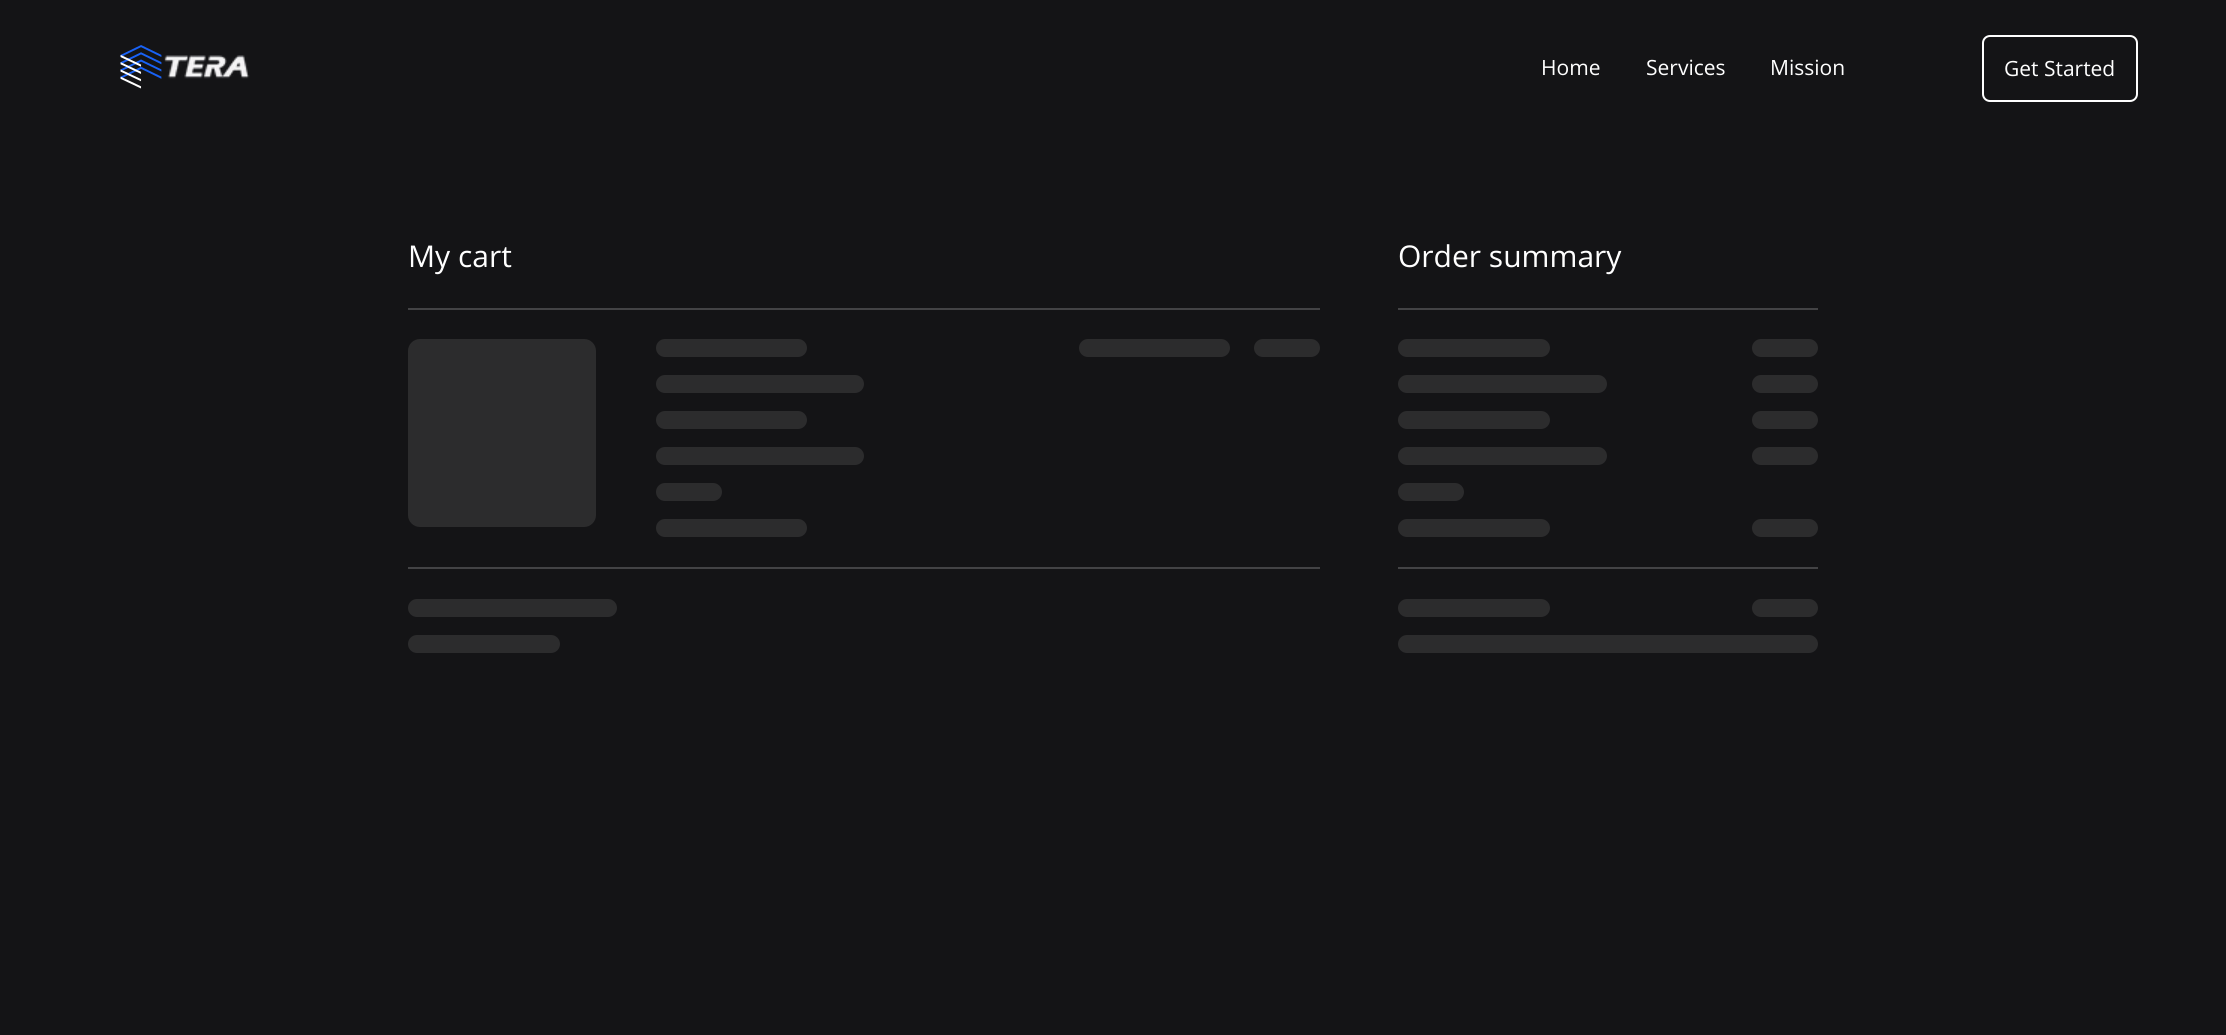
import math
import cairo

surface = cairo.ImageSurface(cairo.FORMAT_RGB24, 2226, 1035)
cr = cairo.Context(surface)
options = cairo.FontOptions()
options.set_hint_metrics(cairo.HINT_METRICS_OFF)
options.set_hint_style(cairo.HINT_STYLE_NONE)
cr.set_font_options(options)
cr.set_miter_limit(4)


def rgb(code):
    cr.set_source_rgb(*(v / 255 for v in bytes.fromhex(code[-6:])))


def rrect(x, y, w, h, r):
    cr.new_sub_path()
    for i, (u, v) in enumerate([(x + w - r, y + h - r), (x + r, y + h - r), (x + r, y + r), (x + w - r, y + r)]):
        cr.arc(u, v, r, i * math.pi / 2, (i + 1) * math.pi / 2)
    cr.close_path()


def image(path, x, y, w, h):
    cr.save()
    cr.set_source_surface(cairo.ImageSurface.create_from_png(path), x, y)
    cr.rectangle(x, y, w, h)
    cr.fill()
    cr.restore()


rgb("#141416")
cr.paint()
image("img/1.png", 120, 45, 42, 44)
image("img/2.png", 164, 55, 86, 24)
rrect(1983, 36, 154, 65, 7)
rgb("#ffffff")
cr.stroke()
rgb("#434345")
cr.rectangle(408, 308, 912, 2)
cr.fill()
gradient = cairo.LinearGradient(408, 433, 1158, 433)
gradient.add_color_stop_rgba(0.25, 0.173, 0.173, 0.176, 1)
gradient.add_color_stop_rgba(0.37, 0.263, 0.263, 0.271, 1)
gradient.add_color_stop_rgba(0.63, 0.173, 0.173, 0.176, 1)
cr.set_source(gradient)
rrect(408, 339, 188, 188, 12)
cr.fill()
gradient = cairo.LinearGradient(656, 348, 1262, 348)
gradient.add_color_stop_rgba(0.25, 0.173, 0.173, 0.176, 1)
gradient.add_color_stop_rgba(0.37, 0.263, 0.263, 0.271, 1)
gradient.add_color_stop_rgba(0.63, 0.173, 0.173, 0.176, 1)
cr.set_source(gradient)
rrect(656, 339, 151, 18, 9)
cr.fill()
gradient = cairo.LinearGradient(656, 384, 1490, 384)
gradient.add_color_stop_rgba(0.25, 0.173, 0.173, 0.176, 1)
gradient.add_color_stop_rgba(0.37, 0.263, 0.263, 0.271, 1)
gradient.add_color_stop_rgba(0.63, 0.173, 0.173, 0.176, 1)
cr.set_source(gradient)
rrect(656, 375, 208, 18, 9)
cr.fill()
gradient = cairo.LinearGradient(656, 420, 1262, 420)
gradient.add_color_stop_rgba(0.25, 0.173, 0.173, 0.176, 1)
gradient.add_color_stop_rgba(0.37, 0.263, 0.263, 0.271, 1)
gradient.add_color_stop_rgba(0.63, 0.173, 0.173, 0.176, 1)
cr.set_source(gradient)
rrect(656, 411, 151, 18, 9)
cr.fill()
gradient = cairo.LinearGradient(656, 456, 1490, 456)
gradient.add_color_stop_rgba(0.25, 0.173, 0.173, 0.176, 1)
gradient.add_color_stop_rgba(0.37, 0.263, 0.263, 0.271, 1)
gradient.add_color_stop_rgba(0.63, 0.173, 0.173, 0.176, 1)
cr.set_source(gradient)
rrect(656, 447, 208, 18, 9)
cr.fill()
gradient = cairo.LinearGradient(656, 492, 920, 492)
gradient.add_color_stop_rgba(0.25, 0.173, 0.173, 0.176, 1)
gradient.add_color_stop_rgba(0.37, 0.263, 0.263, 0.271, 1)
gradient.add_color_stop_rgba(0.63, 0.173, 0.173, 0.176, 1)
cr.set_source(gradient)
rrect(656, 483, 66, 18, 9)
cr.fill()
gradient = cairo.LinearGradient(656, 528, 1262, 528)
gradient.add_color_stop_rgba(0.25, 0.173, 0.173, 0.176, 1)
gradient.add_color_stop_rgba(0.37, 0.263, 0.263, 0.271, 1)
gradient.add_color_stop_rgba(0.63, 0.173, 0.173, 0.176, 1)
cr.set_source(gradient)
rrect(656, 519, 151, 18, 9)
cr.fill()
gradient = cairo.LinearGradient(1079, 348, 1685, 348)
gradient.add_color_stop_rgba(0.25, 0.173, 0.173, 0.176, 1)
gradient.add_color_stop_rgba(0.37, 0.263, 0.263, 0.271, 1)
gradient.add_color_stop_rgba(0.63, 0.173, 0.173, 0.176, 1)
cr.set_source(gradient)
rrect(1079, 339, 151, 18, 9)
cr.fill()
gradient = cairo.LinearGradient(1254, 348, 1518, 348)
gradient.add_color_stop_rgba(0.25, 0.173, 0.173, 0.176, 1)
gradient.add_color_stop_rgba(0.37, 0.263, 0.263, 0.271, 1)
gradient.add_color_stop_rgba(0.63, 0.173, 0.173, 0.176, 1)
cr.set_source(gradient)
rrect(1254, 339, 66, 18, 9)
cr.fill()
rgb("#434345")
cr.rectangle(408, 567, 912, 2)
cr.fill()
gradient = cairo.LinearGradient(408, 608, 1242, 608)
gradient.add_color_stop_rgba(0.25, 0.173, 0.173, 0.176, 1)
gradient.add_color_stop_rgba(0.37, 0.263, 0.263, 0.271, 1)
gradient.add_color_stop_rgba(0.63, 0.173, 0.173, 0.176, 1)
cr.set_source(gradient)
rrect(408, 599, 209, 18, 9)
cr.fill()
gradient = cairo.LinearGradient(408, 644, 1014, 644)
gradient.add_color_stop_rgba(0.25, 0.173, 0.173, 0.176, 1)
gradient.add_color_stop_rgba(0.37, 0.263, 0.263, 0.271, 1)
gradient.add_color_stop_rgba(0.63, 0.173, 0.173, 0.176, 1)
cr.set_source(gradient)
rrect(408, 635, 152, 18, 9)
cr.fill()
rgb("#434345")
cr.rectangle(1398, 308, 420, 2)
cr.fill()
gradient = cairo.LinearGradient(1398, 348, 2004, 348)
gradient.add_color_stop_rgba(0.25, 0.173, 0.173, 0.176, 1)
gradient.add_color_stop_rgba(0.37, 0.263, 0.263, 0.271, 1)
gradient.add_color_stop_rgba(0.63, 0.173, 0.173, 0.176, 1)
cr.set_source(gradient)
rrect(1398, 339, 152, 18, 9)
cr.fill()
gradient = cairo.LinearGradient(1752, 348, 2016, 348)
gradient.add_color_stop_rgba(0.25, 0.173, 0.173, 0.176, 1)
gradient.add_color_stop_rgba(0.37, 0.263, 0.263, 0.271, 1)
gradient.add_color_stop_rgba(0.63, 0.173, 0.173, 0.176, 1)
cr.set_source(gradient)
rrect(1752, 339, 66, 18, 9)
cr.fill()
gradient = cairo.LinearGradient(1398, 384, 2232, 384)
gradient.add_color_stop_rgba(0.25, 0.173, 0.173, 0.176, 1)
gradient.add_color_stop_rgba(0.37, 0.263, 0.263, 0.271, 1)
gradient.add_color_stop_rgba(0.63, 0.173, 0.173, 0.176, 1)
cr.set_source(gradient)
rrect(1398, 375, 209, 18, 9)
cr.fill()
gradient = cairo.LinearGradient(1752, 384, 2016, 384)
gradient.add_color_stop_rgba(0.25, 0.173, 0.173, 0.176, 1)
gradient.add_color_stop_rgba(0.37, 0.263, 0.263, 0.271, 1)
gradient.add_color_stop_rgba(0.63, 0.173, 0.173, 0.176, 1)
cr.set_source(gradient)
rrect(1752, 375, 66, 18, 9)
cr.fill()
gradient = cairo.LinearGradient(1398, 420, 2004, 420)
gradient.add_color_stop_rgba(0.25, 0.173, 0.173, 0.176, 1)
gradient.add_color_stop_rgba(0.37, 0.263, 0.263, 0.271, 1)
gradient.add_color_stop_rgba(0.63, 0.173, 0.173, 0.176, 1)
cr.set_source(gradient)
rrect(1398, 411, 152, 18, 9)
cr.fill()
gradient = cairo.LinearGradient(1752, 420, 2016, 420)
gradient.add_color_stop_rgba(0.25, 0.173, 0.173, 0.176, 1)
gradient.add_color_stop_rgba(0.37, 0.263, 0.263, 0.271, 1)
gradient.add_color_stop_rgba(0.63, 0.173, 0.173, 0.176, 1)
cr.set_source(gradient)
rrect(1752, 411, 66, 18, 9)
cr.fill()
gradient = cairo.LinearGradient(1398, 456, 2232, 456)
gradient.add_color_stop_rgba(0.25, 0.173, 0.173, 0.176, 1)
gradient.add_color_stop_rgba(0.37, 0.263, 0.263, 0.271, 1)
gradient.add_color_stop_rgba(0.63, 0.173, 0.173, 0.176, 1)
cr.set_source(gradient)
rrect(1398, 447, 209, 18, 9)
cr.fill()
gradient = cairo.LinearGradient(1752, 456, 2016, 456)
gradient.add_color_stop_rgba(0.25, 0.173, 0.173, 0.176, 1)
gradient.add_color_stop_rgba(0.37, 0.263, 0.263, 0.271, 1)
gradient.add_color_stop_rgba(0.63, 0.173, 0.173, 0.176, 1)
cr.set_source(gradient)
rrect(1752, 447, 66, 18, 9)
cr.fill()
gradient = cairo.LinearGradient(1398, 492, 1662, 492)
gradient.add_color_stop_rgba(0.25, 0.173, 0.173, 0.176, 1)
gradient.add_color_stop_rgba(0.37, 0.263, 0.263, 0.271, 1)
gradient.add_color_stop_rgba(0.63, 0.173, 0.173, 0.176, 1)
cr.set_source(gradient)
rrect(1398, 483, 66, 18, 9)
cr.fill()
gradient = cairo.LinearGradient(1398, 528, 2004, 528)
gradient.add_color_stop_rgba(0.25, 0.173, 0.173, 0.176, 1)
gradient.add_color_stop_rgba(0.37, 0.263, 0.263, 0.271, 1)
gradient.add_color_stop_rgba(0.63, 0.173, 0.173, 0.176, 1)
cr.set_source(gradient)
rrect(1398, 519, 152, 18, 9)
cr.fill()
gradient = cairo.LinearGradient(1752, 528, 2016, 528)
gradient.add_color_stop_rgba(0.25, 0.173, 0.173, 0.176, 1)
gradient.add_color_stop_rgba(0.37, 0.263, 0.263, 0.271, 1)
gradient.add_color_stop_rgba(0.63, 0.173, 0.173, 0.176, 1)
cr.set_source(gradient)
rrect(1752, 519, 66, 18, 9)
cr.fill()
rgb("#434345")
cr.rectangle(1398, 567, 420, 2)
cr.fill()
gradient = cairo.LinearGradient(1398, 608, 2004, 608)
gradient.add_color_stop_rgba(0.25, 0.173, 0.173, 0.176, 1)
gradient.add_color_stop_rgba(0.37, 0.263, 0.263, 0.271, 1)
gradient.add_color_stop_rgba(0.63, 0.173, 0.173, 0.176, 1)
cr.set_source(gradient)
rrect(1398, 599, 152, 18, 9)
cr.fill()
gradient = cairo.LinearGradient(1752, 608, 2016, 608)
gradient.add_color_stop_rgba(0.25, 0.173, 0.173, 0.176, 1)
gradient.add_color_stop_rgba(0.37, 0.263, 0.263, 0.271, 1)
gradient.add_color_stop_rgba(0.63, 0.173, 0.173, 0.176, 1)
cr.set_source(gradient)
rrect(1752, 599, 66, 18, 9)
cr.fill()
gradient = cairo.LinearGradient(1398, 644, 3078, 643)
gradient.add_color_stop_rgba(0.25, 0.173, 0.173, 0.176, 1)
gradient.add_color_stop_rgba(0.37, 0.263, 0.263, 0.271, 1)
gradient.add_color_stop_rgba(0.63, 0.173, 0.173, 0.176, 1)
cr.set_source(gradient)
rrect(1398, 635, 420, 18, 9)
cr.fill()
cr.select_font_face("Open Sans")
cr.set_font_size(21)
rgb("#ffffff")
for x, y, s in [
    (1541, 75, "Home"),
    (1646, 75, "Services"),
    (1770, 75, "Mission"),
    (2004, 76, "Get Started"),
]:
    cr.move_to(x, y)
    cr.show_text(s)
cr.set_font_size(30)
cr.move_to(408, 267)
cr.show_text("My cart")
cr.move_to(1398, 267)
cr.show_text("Order summary")
surface.write_to_png("page.png")
